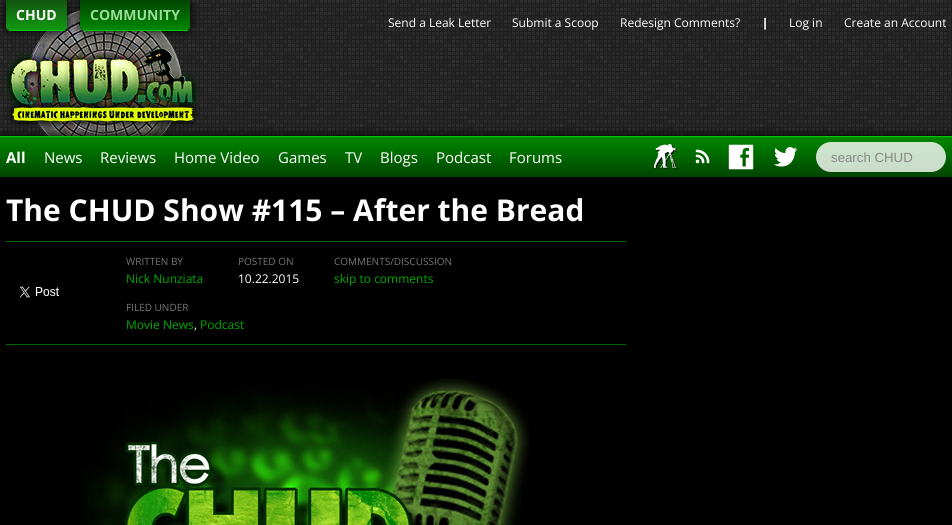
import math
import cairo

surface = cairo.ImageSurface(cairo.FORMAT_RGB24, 952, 525)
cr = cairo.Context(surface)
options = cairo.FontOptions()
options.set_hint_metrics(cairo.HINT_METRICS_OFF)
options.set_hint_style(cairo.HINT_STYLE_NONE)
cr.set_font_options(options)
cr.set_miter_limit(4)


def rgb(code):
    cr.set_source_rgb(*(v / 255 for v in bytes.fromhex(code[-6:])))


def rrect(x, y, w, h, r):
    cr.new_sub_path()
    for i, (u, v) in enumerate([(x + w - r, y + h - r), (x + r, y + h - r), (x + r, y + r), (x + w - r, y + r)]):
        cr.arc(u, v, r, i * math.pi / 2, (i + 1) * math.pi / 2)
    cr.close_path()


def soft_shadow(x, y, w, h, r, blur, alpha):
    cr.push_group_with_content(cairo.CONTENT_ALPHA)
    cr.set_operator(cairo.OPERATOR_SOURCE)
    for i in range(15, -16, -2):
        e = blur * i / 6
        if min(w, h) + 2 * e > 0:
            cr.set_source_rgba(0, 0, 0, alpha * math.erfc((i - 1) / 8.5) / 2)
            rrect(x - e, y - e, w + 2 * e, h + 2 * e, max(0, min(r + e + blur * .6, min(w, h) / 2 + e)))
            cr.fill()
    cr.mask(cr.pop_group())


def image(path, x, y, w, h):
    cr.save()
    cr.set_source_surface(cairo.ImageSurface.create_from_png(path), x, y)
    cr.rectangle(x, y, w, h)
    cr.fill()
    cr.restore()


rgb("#000000")
cr.paint()
rgb("#1e1e1e")
cr.rectangle(0, 0, 952, 136)
cr.fill()
image("img/1.png", 0, 0, 951, 135)
image("img/2.png", 6, 10, 193, 126)
rgb("#000000")
soft_shadow(6, 0, 61, 31, 5, 5, 1)
cr.save()
cr.new_path()
cr.move_to(6, 0)
cr.line_to(67, 0)
cr.line_to(67, 26)
cr.curve_to(67, 29, 65, 31, 62, 31)
cr.line_to(11, 31)
cr.curve_to(8, 31, 6, 29, 6, 26)
cr.close_path()
cr.clip()
gradient = cairo.LinearGradient(6, 30, 6, 0)
gradient.add_color_stop_rgba(0, 0.067, 0.6, 0.067, 1)
gradient.add_color_stop_rgba(1, 0.067, 0.333, 0.067, 1)
cr.set_source(gradient)
cr.rectangle(6, 0, 61, 30)
cr.fill()
cr.restore()
rgb("#00cc00")
cr.rectangle(9, 30, 56, 1)
cr.fill()
rgb("#000000")
soft_shadow(80, 0, 110, 31, 5, 5, 1)
cr.save()
cr.new_path()
cr.move_to(80, 0)
cr.line_to(190, 0)
cr.line_to(190, 26)
cr.curve_to(190, 29, 188, 31, 185, 31)
cr.line_to(85, 31)
cr.curve_to(82, 31, 80, 29, 80, 26)
cr.close_path()
cr.clip()
gradient = cairo.LinearGradient(80, 30, 80, 0)
gradient.add_color_stop_rgba(0, 0, 0.533, 0, 1)
gradient.add_color_stop_rgba(1, 0, 0.267, 0, 1)
cr.set_source(gradient)
cr.rectangle(80, 0, 110, 30)
cr.fill()
cr.restore()
rgb("#00cc00")
cr.rectangle(83, 30, 105, 1)
cr.fill()
rgb("#000000")
soft_shadow(0, 136, 952, 41, 0, 5, 1)
gradient = cairo.LinearGradient(0, 177, 0, 137)
gradient.add_color_stop_rgba(0, 0, 0.267, 0, 1)
gradient.add_color_stop_rgba(1, 0, 0.533, 0, 1)
cr.set_source(gradient)
cr.rectangle(0, 137, 952, 40)
cr.fill()
rgb("#00cc00")
cr.rectangle(0, 136, 952, 1)
cr.fill()
image("img/3.png", 654, 144, 23, 25)
image("img/4.png", 695, 149, 15, 15)
image("img/5.png", 728, 144, 26, 26)
image("img/6.png", 774, 147, 24, 20)
cr.set_source_rgba(1, 1, 1, 0.8)
rrect(816, 142, 130, 30, 15)
cr.fill()
rgb("#006600")
cr.rectangle(6, 241, 620, 1)
cr.fill()
cr.rectangle(6, 344, 620, 1)
cr.fill()
image("img/7.png", 19, 286, 40, 12)
image("img/8.png", 80, 378, 450, 147)
cr.select_font_face("Open Sans", cairo.FONT_SLANT_NORMAL, cairo.FONT_WEIGHT_BOLD)
cr.set_font_size(14)
rgb("#ffffff")
cr.move_to(16, 20)
cr.show_text("CHUD")
rgb("#99dd99")
cr.move_to(90, 20)
cr.show_text("COMMUNITY")
cr.select_font_face("Open Sans")
cr.set_font_size(12)
rgb("#ffffff")
for x, y, s in [
    (388, 27, "Send a Leak Letter"),
    (512, 27, "Submit a Scoop"),
    (620, 27, "Redesign Comments?"),
]:
    cr.move_to(x, y)
    cr.show_text(s)
cr.select_font_face("Open Sans ExtraBold")
cr.move_to(762, 27)
cr.show_text("|")
cr.select_font_face("Open Sans")
cr.move_to(789, 27)
cr.show_text("Log in")
cr.move_to(844, 27)
cr.show_text("Create an Account")
cr.select_font_face("Open Sans", cairo.FONT_SLANT_NORMAL, cairo.FONT_WEIGHT_BOLD)
cr.set_font_size(15)
cr.move_to(6, 163)
cr.show_text("All")
cr.select_font_face("Open Sans")
for x, y, s in [
    (44, 163, "News"),
    (100, 163, "Reviews"),
    (174, 163, "Home Video"),
    (278, 163, "Games"),
    (345, 163, "TV"),
    (380, 163, "Blogs"),
    (436, 163, "Podcast"),
    (509, 163, "Forums"),
]:
    cr.move_to(x, y)
    cr.show_text(s)
cr.select_font_face("Liberation Sans")
cr.set_font_size(13.25)
rgb("#868a86")
cr.move_to(831, 162)
cr.show_text("search CHUD")
cr.select_font_face("Open Sans", cairo.FONT_SLANT_NORMAL, cairo.FONT_WEIGHT_BOLD)
cr.set_font_size(30)
rgb("#ffffff")
cr.move_to(6, 221)
cr.show_text("The CHUD Show #115 – After the Bread")
cr.select_font_face("Open Sans")
cr.set_font_size(10)
rgb("#777777")
cr.move_to(126, 265)
cr.show_text("WRITTEN BY")
cr.set_font_size(12)
rgb("#00aa00")
cr.move_to(126, 283)
cr.show_text("Nick Nunziata")
cr.set_font_size(10)
rgb("#777777")
cr.move_to(238, 265)
cr.show_text("POSTED ON")
cr.set_font_size(12)
rgb("#ffffff")
cr.move_to(238, 283)
cr.show_text("10.22.2015")
cr.set_font_size(10)
rgb("#777777")
cr.move_to(334, 265)
cr.show_text("COMMENTS/DISCUSSION")
cr.set_font_size(12)
rgb("#00aa00")
cr.move_to(334, 283)
cr.show_text("skip to comments")
cr.set_font_size(10)
rgb("#777777")
cr.move_to(126, 311)
cr.show_text("FILED UNDER")
cr.set_font_size(12)
rgb("#00aa00")
cr.move_to(126, 329)
cr.show_text("Movie News")
rgb("#ffffff")
cr.move_to(194, 329)
cr.show_text(",")
rgb("#00aa00")
cr.move_to(200, 329)
cr.show_text("Podcast")
surface.write_to_png("page.png")
